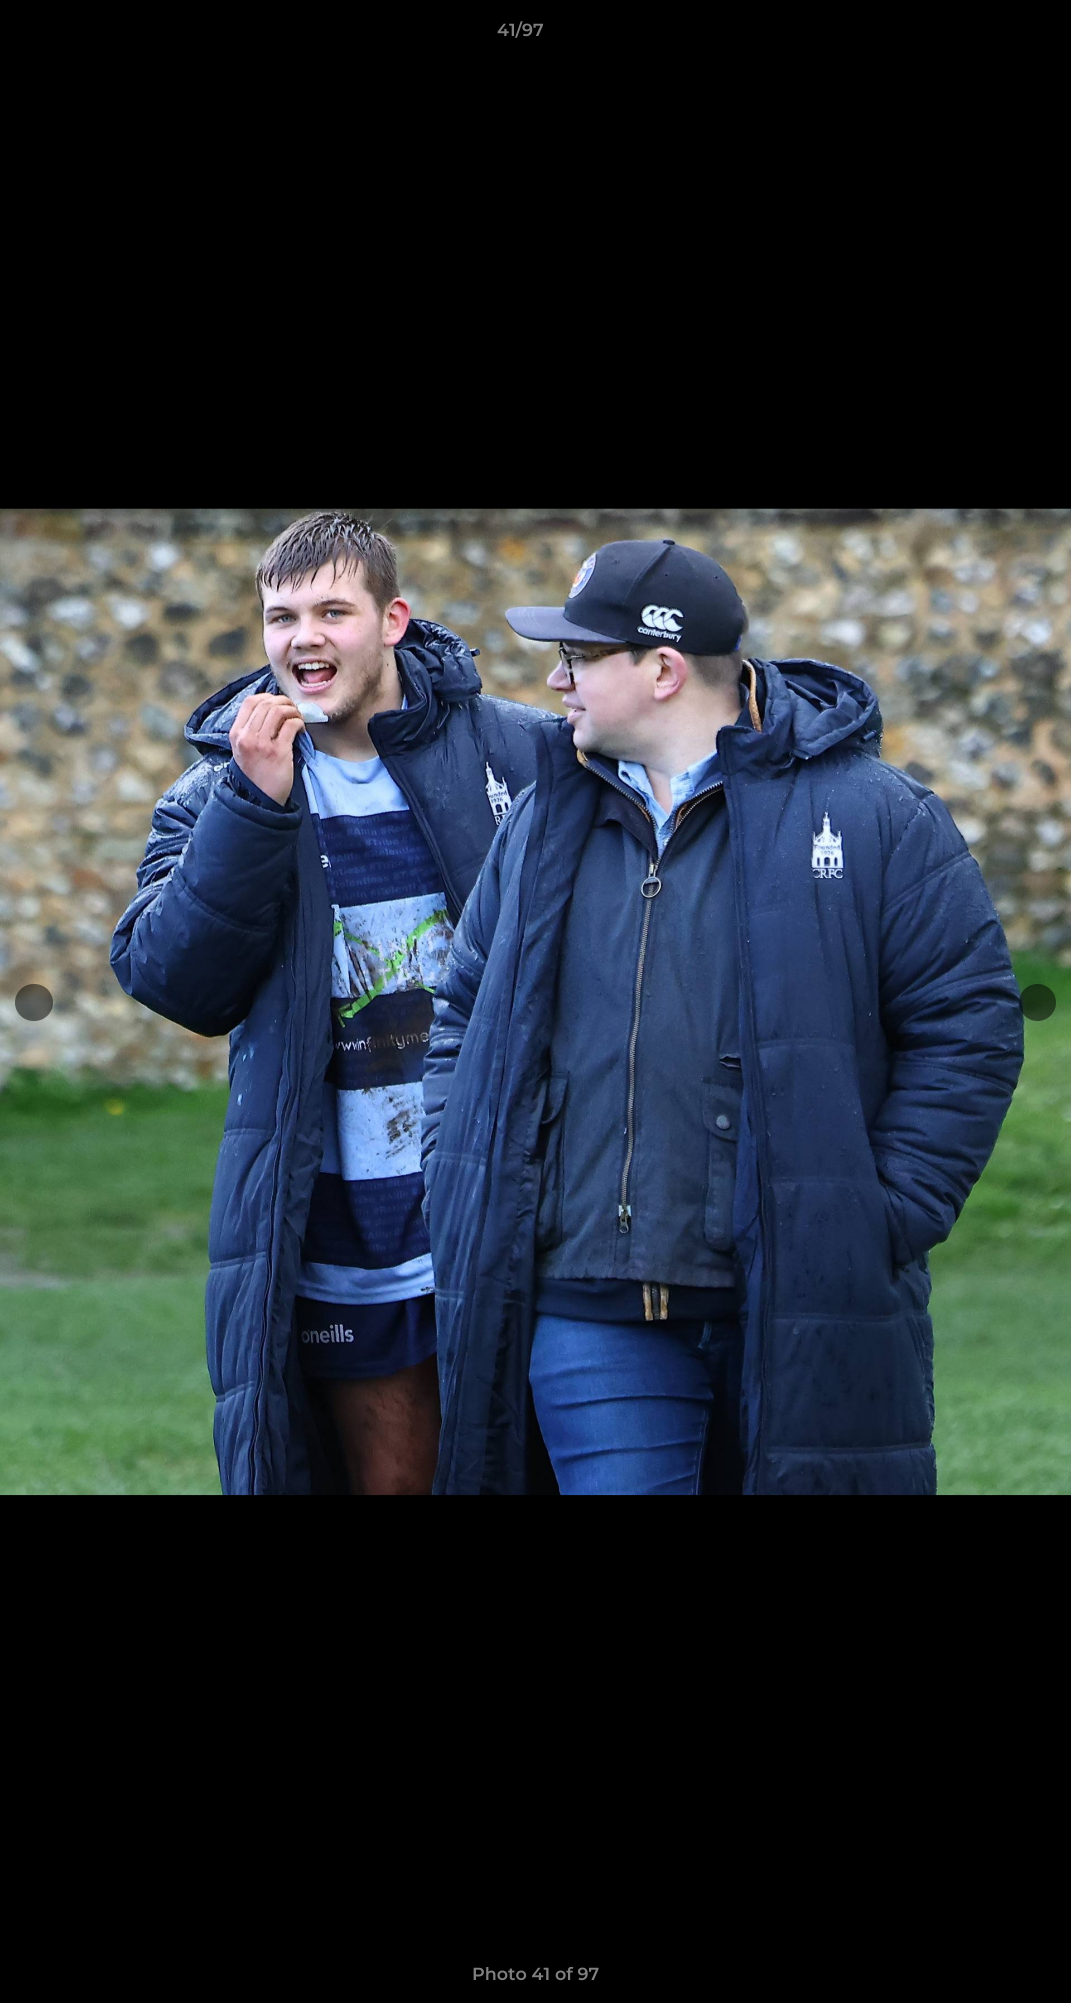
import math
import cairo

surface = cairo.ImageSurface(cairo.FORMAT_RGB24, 1071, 2003)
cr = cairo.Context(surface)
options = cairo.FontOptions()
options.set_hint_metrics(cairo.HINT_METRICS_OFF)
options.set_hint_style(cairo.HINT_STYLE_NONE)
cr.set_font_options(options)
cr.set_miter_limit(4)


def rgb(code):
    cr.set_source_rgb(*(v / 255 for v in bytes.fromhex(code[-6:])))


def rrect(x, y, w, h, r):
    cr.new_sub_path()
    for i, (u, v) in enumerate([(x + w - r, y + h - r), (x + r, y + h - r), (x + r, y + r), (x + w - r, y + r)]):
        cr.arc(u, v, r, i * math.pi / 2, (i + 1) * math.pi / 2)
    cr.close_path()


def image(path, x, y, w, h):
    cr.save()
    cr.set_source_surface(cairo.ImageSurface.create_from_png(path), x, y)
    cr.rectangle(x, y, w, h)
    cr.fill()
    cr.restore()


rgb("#000000")
cr.paint()
image("img/1.png", 0, 508, 1071, 988)
cr.set_source_rgba(0, 0, 0, 0.5)
rrect(15, 984, 38, 37, 18.5)
cr.fill()
cr.arc(1037.5, 1002.5, 18.5, 0, 2 * math.pi)
cr.fill()
cr.select_font_face("Montserrat SemiBold")
cr.set_font_size(17.5)
rgb("#808080")
cr.move_to(497, 36)
cr.show_text("41/97")
cr.move_to(472, 1980)
cr.show_text("Photo 41 of 97")
surface.write_to_png("page.png")
